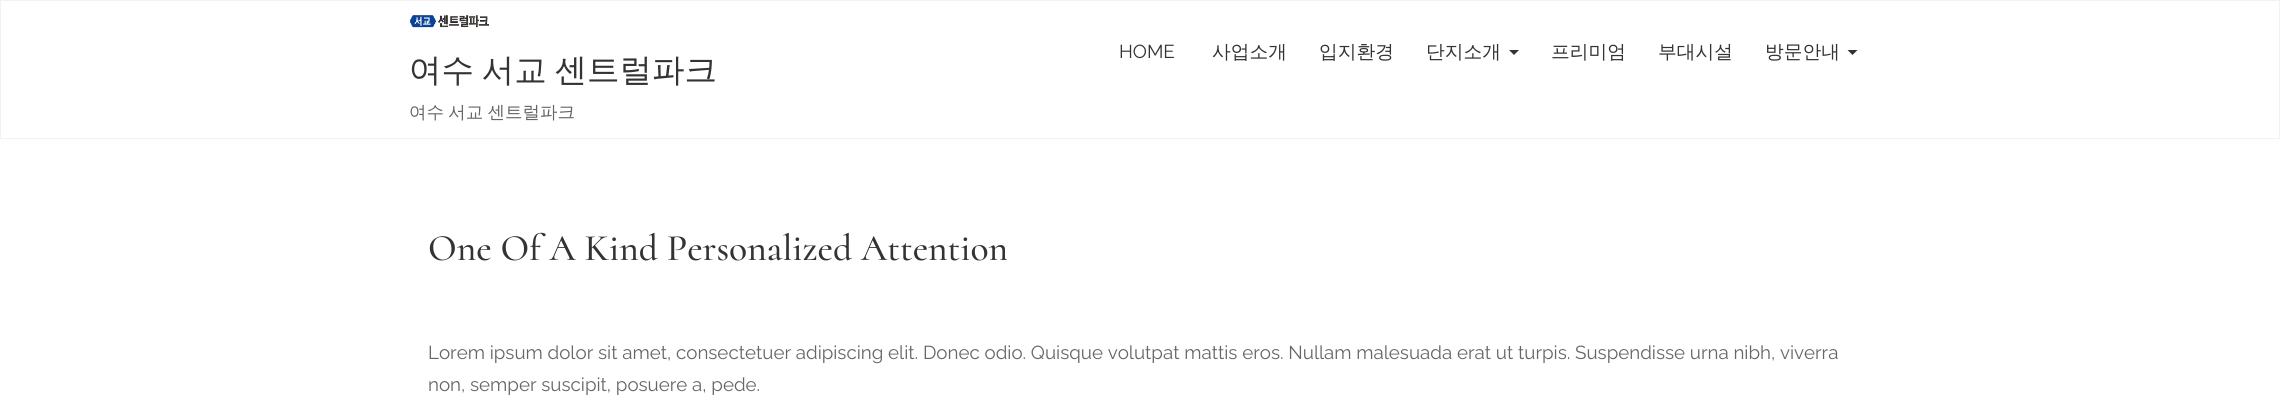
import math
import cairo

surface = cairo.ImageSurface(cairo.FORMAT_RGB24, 2280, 408)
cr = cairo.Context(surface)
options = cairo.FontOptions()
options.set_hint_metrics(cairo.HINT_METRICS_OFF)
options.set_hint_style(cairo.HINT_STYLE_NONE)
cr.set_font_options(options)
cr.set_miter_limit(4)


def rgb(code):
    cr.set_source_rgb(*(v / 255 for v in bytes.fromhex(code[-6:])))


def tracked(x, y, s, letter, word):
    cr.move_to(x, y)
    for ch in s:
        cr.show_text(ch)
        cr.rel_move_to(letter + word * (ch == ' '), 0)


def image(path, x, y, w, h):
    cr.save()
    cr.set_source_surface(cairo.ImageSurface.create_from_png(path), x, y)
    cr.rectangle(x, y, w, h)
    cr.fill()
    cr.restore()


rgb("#ffffff")
cr.paint()
cr.rectangle(0.5, 0.5, 2279, 138)
rgb("#f2f2f2")
cr.set_line_width(1)
cr.stroke()
rgb("#333333")
cr.new_path()
cr.move_to(1509, 50)
cr.line_to(1519, 50)
cr.line_to(1514, 55)
cr.close_path()
cr.fill()
cr.new_path()
cr.move_to(1847.5, 50)
cr.line_to(1857.5, 50)
cr.line_to(1852.5, 55)
cr.close_path()
cr.fill()
image("img/1.png", 410, 15, 80, 13)
cr.select_font_face("Raleway Thin")
cr.set_font_size(18.75)
cr.move_to(1119, 58)
cr.show_text("HOME")
cr.select_font_face("WenQuanYi Zen Hei Medium")
for x, y, s in [
    (1212, 58, "사업소개"),
    (1319, 58, "입지환경"),
    (1426, 58, "단지소개"),
    (1551, 58, "프리미엄"),
    (1658, 58, "부대시설"),
    (1765, 58, "방문안내"),
]:
    cr.move_to(x, y)
    cr.show_text(s)
cr.set_font_size(32.5)
tracked(409, 81, "여수 서교 센트럴파크", 0, -2)
cr.set_font_size(17.5)
rgb("#666666")
tracked(409, 118, "여수 서교 센트럴파크", 0, -1)
cr.select_font_face("Cormorant Light")
cr.set_font_size(37.5)
rgb("#333333")
cr.move_to(428, 260)
cr.show_text("One Of A Kind Personalized Attention")
cr.select_font_face("Raleway Thin")
cr.set_font_size(18.75)
rgb("#666666")
cr.move_to(428, 359)
cr.show_text("Lorem ipsum dolor sit amet, consectetuer adipiscing elit. Donec odio. Quisque volutpat mattis eros. Nullam malesuada erat ut turpis. Suspendisse urna nibh, viverra")
cr.move_to(428, 391)
cr.show_text("non, semper suscipit, posuere a, pede.")
surface.write_to_png("page.png")
